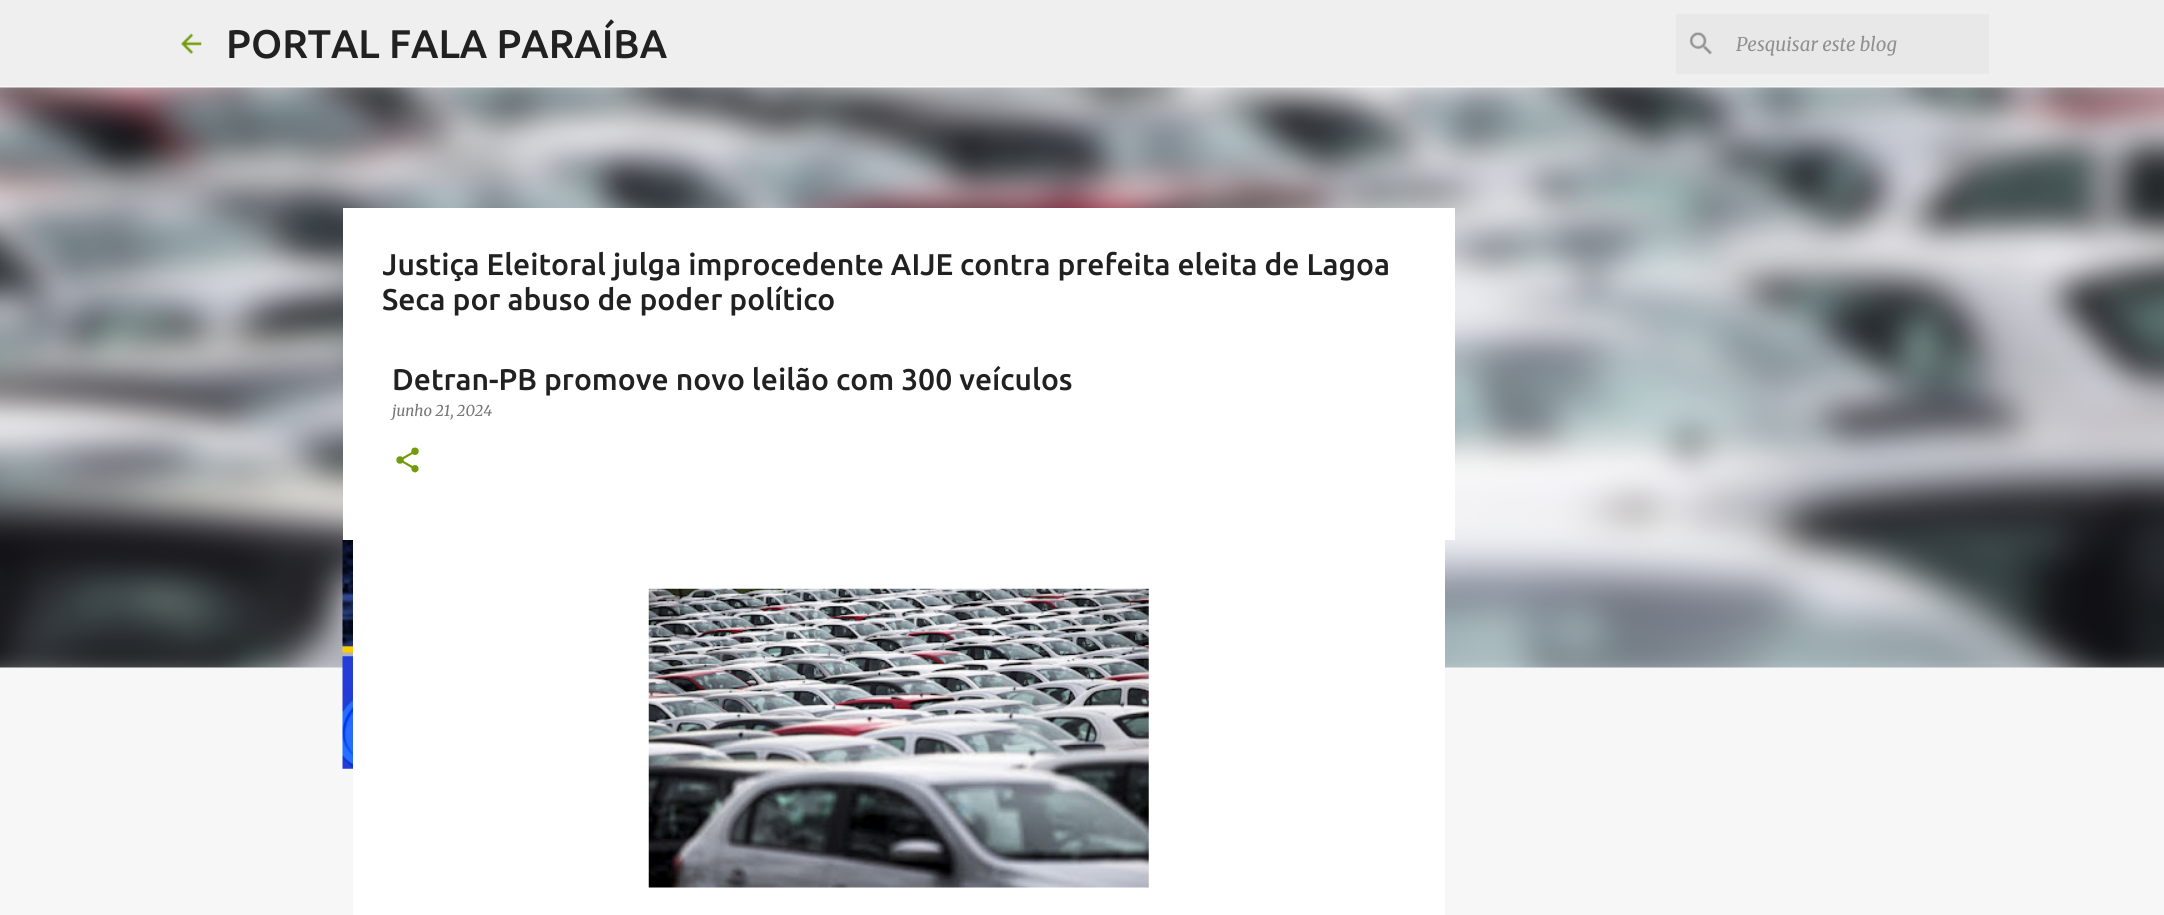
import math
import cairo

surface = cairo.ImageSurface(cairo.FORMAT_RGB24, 2164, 915)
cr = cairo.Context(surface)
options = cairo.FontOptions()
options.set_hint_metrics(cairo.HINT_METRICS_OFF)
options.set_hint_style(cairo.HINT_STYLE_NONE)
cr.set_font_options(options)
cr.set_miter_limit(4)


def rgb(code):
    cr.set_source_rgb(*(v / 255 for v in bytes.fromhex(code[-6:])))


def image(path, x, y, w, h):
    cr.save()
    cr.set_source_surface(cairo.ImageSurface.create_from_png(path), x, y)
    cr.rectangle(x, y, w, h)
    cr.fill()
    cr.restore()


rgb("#f7f7f7")
cr.paint()
rgb("#efefef")
cr.rectangle(0, 0, 2164, 86)
cr.fill()
image("img/1.png", 181, 33, 21, 21)
rgb("#e8e8e8")
cr.rectangle(1676, 14, 313, 60)
cr.fill()
image("img/2.png", 1689, 32, 23, 23)
image("img/7.png", 0, 87, 2164, 581)
rgb("#ffffff")
cr.rectangle(343, 208, 1112, 332)
cr.fill()
image("img/3.png", 342, 540, 11, 113)
image("img/4.png", 342, 656, 11, 113)
cr.rectangle(353, 540, 1092, 375)
cr.fill()
image("img/5.png", 396, 447, 23, 26)
image("img/6.png", 648, 588, 501, 300)
cr.select_font_face("Ubuntu Medium")
cr.set_font_size(40)
rgb("#212121")
cr.move_to(226, 58)
cr.show_text("PORTAL FALA PARAÍBA")
cr.select_font_face("Merriweather", cairo.FONT_SLANT_ITALIC)
cr.set_font_size(18.75)
rgb("#909090")
cr.move_to(1736, 51)
cr.show_text("Pesquisar este blog")
cr.save()
cr.rectangle(383, 248, 1032, 70)
cr.clip()
cr.select_font_face("Ubuntu Medium")
cr.set_font_size(30)
rgb("#212121")
cr.move_to(382, 275)
cr.show_text("Justiça Eleitoral julga improcedente AIJE contra prefeita eleita de Lagoa")
cr.restore()
cr.select_font_face("Ubuntu Medium")
cr.set_font_size(30)
rgb("#212121")
cr.move_to(382, 310)
cr.show_text("Seca por abuso de poder político")
cr.move_to(392, 390)
cr.show_text("Detran-PB promove novo leilão com 300 veículos")
cr.select_font_face("Merriweather", cairo.FONT_SLANT_ITALIC)
cr.set_font_size(15)
rgb("#757575")
cr.move_to(392, 416)
cr.show_text("junho 21, 2024")
surface.write_to_png("page.png")
